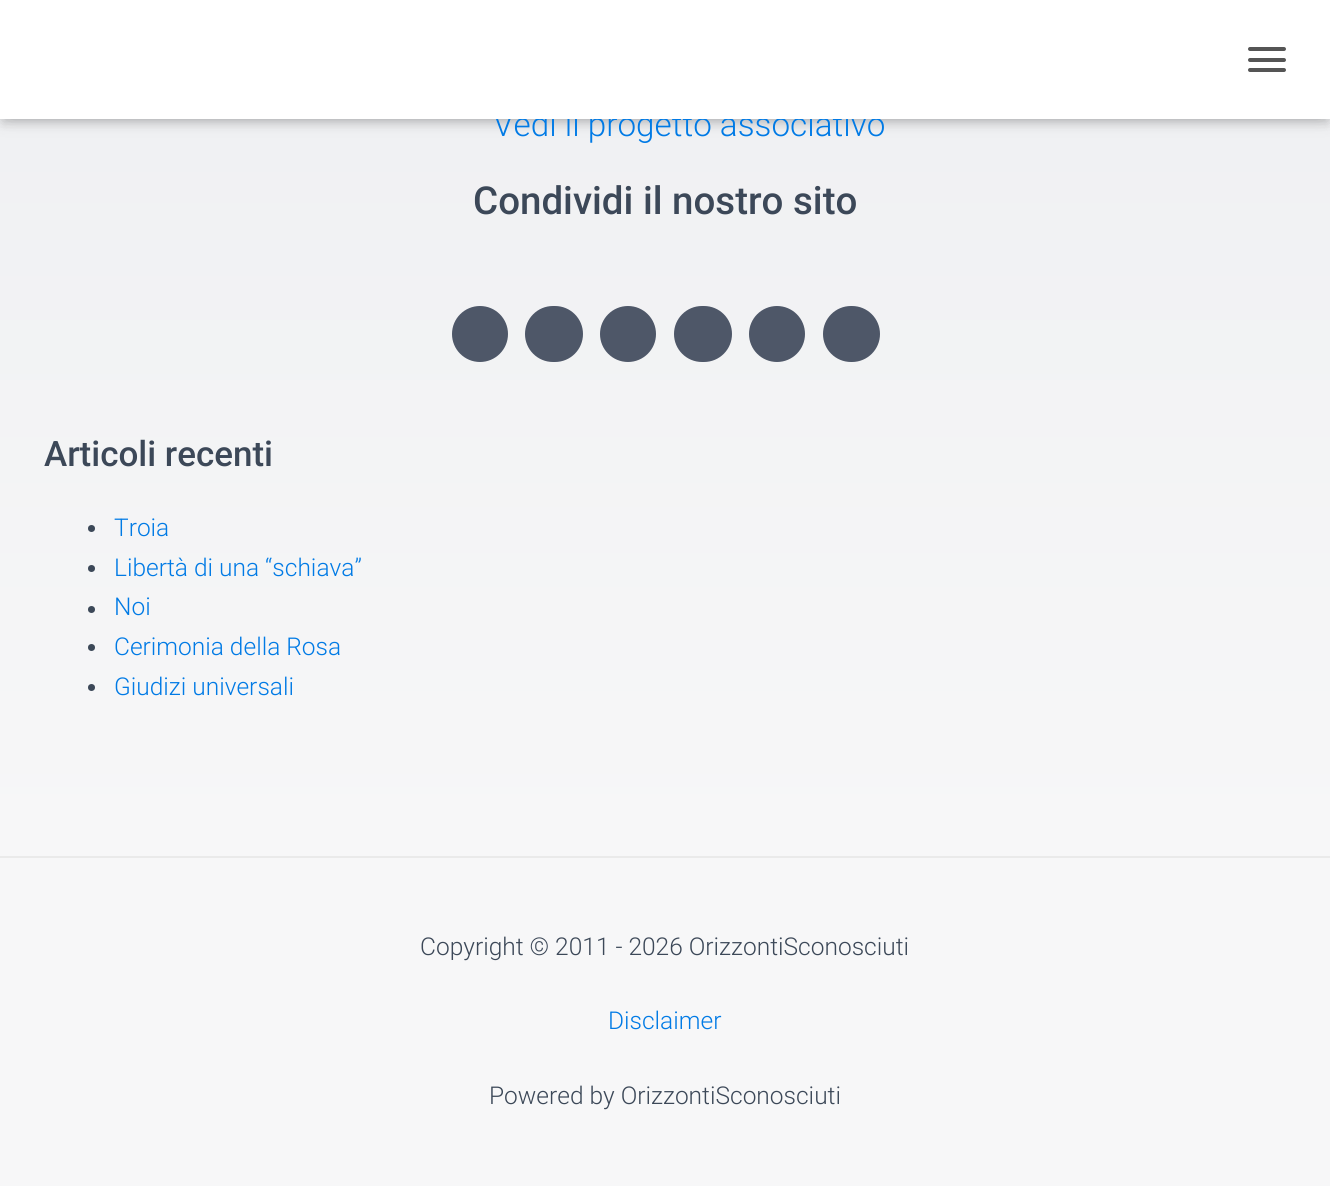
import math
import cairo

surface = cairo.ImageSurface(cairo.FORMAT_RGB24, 1330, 1186)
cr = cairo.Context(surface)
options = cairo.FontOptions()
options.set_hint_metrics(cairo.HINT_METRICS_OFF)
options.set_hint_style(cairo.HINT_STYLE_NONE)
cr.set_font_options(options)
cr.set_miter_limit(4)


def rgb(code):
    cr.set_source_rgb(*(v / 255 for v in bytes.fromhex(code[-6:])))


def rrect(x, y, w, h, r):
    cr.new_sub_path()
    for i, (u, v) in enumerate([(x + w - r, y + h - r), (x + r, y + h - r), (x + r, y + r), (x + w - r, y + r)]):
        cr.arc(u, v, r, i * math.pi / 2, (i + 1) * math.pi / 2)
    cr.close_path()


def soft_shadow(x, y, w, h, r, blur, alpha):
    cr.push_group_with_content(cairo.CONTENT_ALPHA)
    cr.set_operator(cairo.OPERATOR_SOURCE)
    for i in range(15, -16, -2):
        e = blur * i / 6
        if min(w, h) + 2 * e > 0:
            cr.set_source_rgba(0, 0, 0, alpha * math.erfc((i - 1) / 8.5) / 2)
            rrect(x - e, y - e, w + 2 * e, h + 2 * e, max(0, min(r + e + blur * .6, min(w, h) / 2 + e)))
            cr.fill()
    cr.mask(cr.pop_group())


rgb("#ffffff")
cr.paint()
gradient = cairo.LinearGradient(665, -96, 665, 856)
gradient.add_color_stop_rgba(0, 0.933, 0.937, 0.945, 1)
gradient.add_color_stop_rgba(1, 0.969, 0.969, 0.973, 1)
cr.set_source(gradient)
cr.rectangle(0, 119, 1330, 737)
cr.fill()
rgb("#000000")
soft_shadow(4, 11, 1323, 112, 0, 4.5, 0.1)
soft_shadow(0, 2, 1330, 119, 0, 9, 0.12)
soft_shadow(11, 12, 1309, 98, 0, 9, 0.42)
rgb("#4e5768")
cr.arc(480, 334, 28, 0, 2 * math.pi)
cr.fill()
rrect(525, 306, 58, 56, 28)
cr.fill()
cr.arc(628, 334, 28, 0, 2 * math.pi)
cr.fill()
rrect(674, 306, 58, 56, 28)
cr.fill()
cr.arc(777, 334, 28, 0, 2 * math.pi)
cr.fill()
rrect(823, 306, 57, 56, 28)
cr.fill()
rgb("#3c4858")
cr.arc(91.5, 528.5, 3.5, 0, 2 * math.pi)
cr.fill()
cr.arc(91.5, 568.5, 3.5, 0, 2 * math.pi)
cr.fill()
cr.arc(91.5, 609.5, 3.5, 0, 2 * math.pi)
cr.fill()
cr.arc(91.5, 647.5, 3.5, 0, 2 * math.pi)
cr.fill()
cr.arc(91.5, 687.5, 3.5, 0, 2 * math.pi)
cr.fill()
rgb("#f7f7f8")
cr.rectangle(0, 858, 1330, 328)
cr.fill()
rgb("#eaeaea")
cr.rectangle(0, 856, 1330, 2)
cr.fill()
cr.select_font_face("Roboto Light")
cr.set_font_size(33.25)
rgb("#007ae5")
cr.move_to(493, 136)
cr.show_text("Vedi il progetto associativo")
rgb("#ffffff")
cr.rectangle(0, 0, 1330, 119)
cr.fill()
rgb("#555555")
rrect(1248, 68, 38, 4, 2)
cr.fill()
rrect(1248, 58, 38, 4, 2)
cr.fill()
rrect(1248, 47, 38, 4, 2)
cr.fill()
cr.select_font_face("Roboto Medium")
cr.set_font_size(38.5)
rgb("#3c4858")
cr.move_to(473, 214)
cr.show_text("Condividi il nostro sito")
cr.set_font_size(35)
cr.move_to(44, 466)
cr.show_text("Articoli recenti")
cr.select_font_face("Roboto Light")
cr.set_font_size(24.5)
rgb("#007ae5")
for x, y, s in [
    (114, 536, "Troia"),
    (114, 576, "Libertà di una “schiava”"),
    (114, 615, "Noi"),
    (114, 655, "Cerimonia della Rosa"),
    (114, 695, "Giudizi universali"),
]:
    cr.move_to(x, y)
    cr.show_text(s)
rgb("#3c4858")
cr.move_to(420, 955)
cr.show_text("Copyright © 2011 - 2026 OrizzontiSconosciuti")
rgb("#007ae5")
cr.move_to(608, 1029)
cr.show_text("Disclaimer")
rgb("#3c4858")
cr.move_to(489, 1104)
cr.show_text("Powered by OrizzontiSconosciuti")
surface.write_to_png("page.png")
